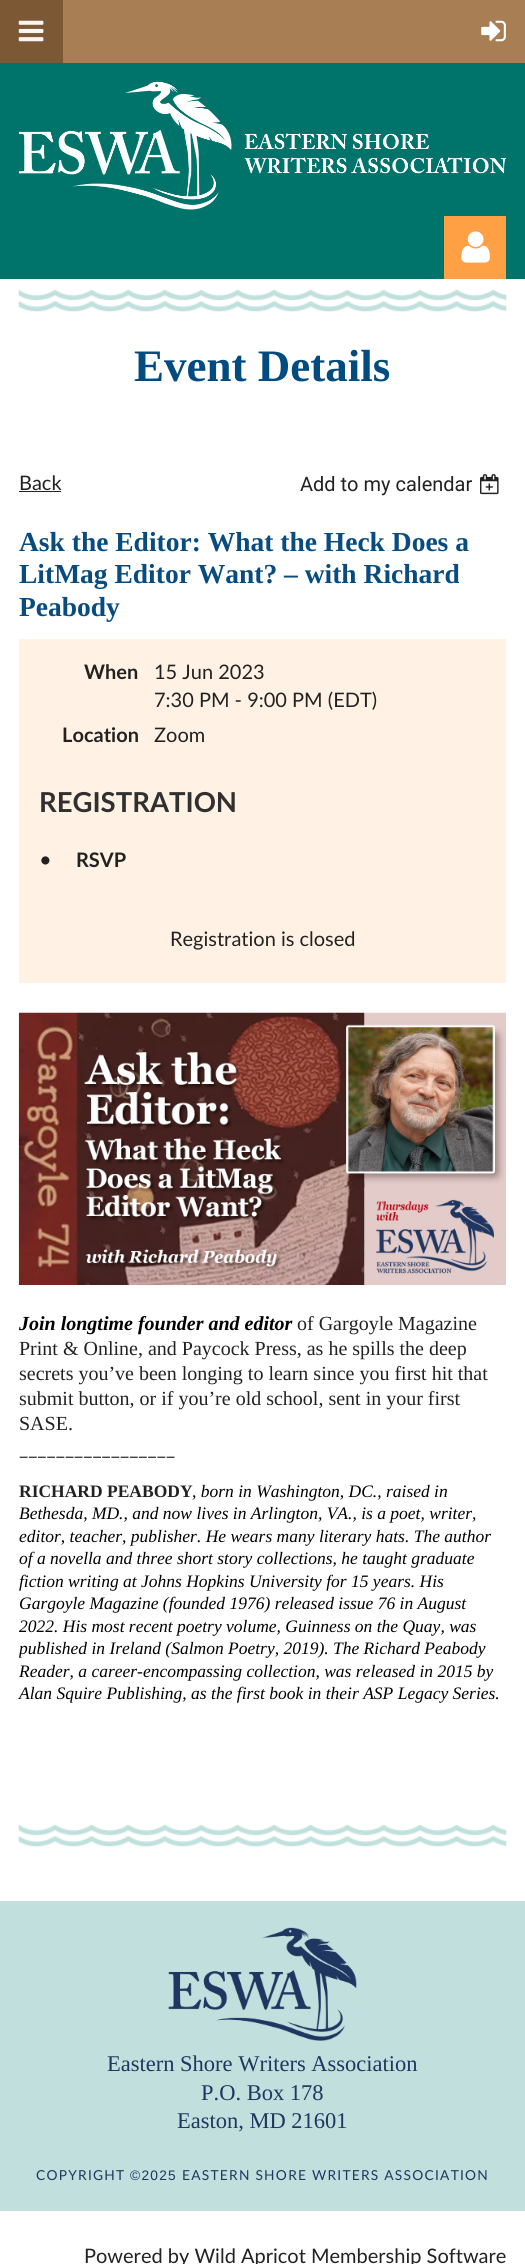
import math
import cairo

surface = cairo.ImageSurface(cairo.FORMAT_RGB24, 525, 2264)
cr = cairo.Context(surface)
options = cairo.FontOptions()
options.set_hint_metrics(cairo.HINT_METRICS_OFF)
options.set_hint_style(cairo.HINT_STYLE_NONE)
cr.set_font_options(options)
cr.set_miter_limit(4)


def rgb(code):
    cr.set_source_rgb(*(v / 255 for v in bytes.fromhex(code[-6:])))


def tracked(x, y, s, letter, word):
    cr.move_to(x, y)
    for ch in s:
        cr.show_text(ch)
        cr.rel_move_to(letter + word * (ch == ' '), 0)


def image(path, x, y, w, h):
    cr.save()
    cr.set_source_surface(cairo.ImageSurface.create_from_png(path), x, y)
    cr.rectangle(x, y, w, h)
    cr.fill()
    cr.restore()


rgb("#ffffff")
cr.paint()
rgb("#a87f54")
cr.rectangle(63, 0, 462, 63)
cr.fill()
rgb("#7c5934")
cr.rectangle(0, 0, 63, 63)
cr.fill()
image("img/1.png", 18, 20, 26, 22)
image("img/2.png", 481, 20, 25, 22)
rgb("#00746b")
cr.rectangle(0, 63, 525, 216)
cr.fill()
image("img/3.png", 18, 81, 489, 129)
rgb("#ffa045")
cr.rectangle(444, 216, 62, 63)
cr.fill()
image("img/4.png", 461, 231, 29, 32)
image("img/5.png", 18, 289, 489, 23)
rgb("#222222")
cr.rectangle(19, 491, 42, 1)
cr.fill()
image("img/6.png", 480, 474, 19, 21)
rgb("#fff2e4")
cr.rectangle(19, 639, 487, 344)
cr.fill()
image("img/7.png", 18, 1012, 488, 273)
image("img/8.png", 18, 1824, 489, 23)
rgb("#c0dfdd")
cr.rectangle(0, 1901, 525, 310)
cr.fill()
image("img/9.png", 168, 1927, 189, 114)
cr.select_font_face("Liberation Serif", cairo.FONT_SLANT_NORMAL, cairo.FONT_WEIGHT_BOLD)
cr.set_font_size(45)
rgb("#004b80")
cr.move_to(134, 381)
cr.show_text("Event Details")
cr.select_font_face("Lato")
cr.set_font_size(20)
rgb("#222222")
cr.move_to(19, 490)
cr.show_text("Back")
cr.select_font_face("Roboto")
cr.move_to(300, 491)
cr.show_text("Add to my calendar")
cr.select_font_face("Liberation Serif", cairo.FONT_SLANT_NORMAL, cairo.FONT_WEIGHT_BOLD)
cr.set_font_size(27.5)
rgb("#084b7f")
for x, y, s in [
    (19, 551, "Ask the Editor: What the Heck Does a"),
    (19, 583, "LitMag Editor Want? – with Richard"),
    (19, 616, "Peabody"),
]:
    cr.move_to(x, y)
    cr.show_text(s)
cr.select_font_face("Lato", cairo.FONT_SLANT_NORMAL, cairo.FONT_WEIGHT_BOLD)
cr.set_font_size(20)
rgb("#222222")
cr.move_to(84, 679)
cr.show_text("When")
cr.select_font_face("Lato")
cr.move_to(154, 679)
cr.show_text("15 Jun 2023")
cr.move_to(154, 707)
cr.show_text("7:30 PM - 9:00 PM (EDT)")
cr.select_font_face("Lato", cairo.FONT_SLANT_NORMAL, cairo.FONT_WEIGHT_BOLD)
cr.move_to(62, 742)
cr.show_text("Location")
cr.select_font_face("Lato")
cr.move_to(154, 742)
cr.show_text("Zoom")
cr.select_font_face("Lato", cairo.FONT_SLANT_NORMAL, cairo.FONT_WEIGHT_BOLD)
cr.set_font_size(27.5)
rgb("#303030")
cr.move_to(39, 812)
cr.show_text("REGISTRATION")
cr.select_font_face("Lato")
cr.set_font_size(22)
rgb("#222222")
cr.move_to(39, 867)
cr.show_text("•")
cr.select_font_face("Lato", cairo.FONT_SLANT_NORMAL, cairo.FONT_WEIGHT_BOLD)
cr.set_font_size(20)
cr.move_to(76, 867)
cr.show_text("RSVP")
cr.select_font_face("Lato")
cr.move_to(170, 946)
cr.show_text("Registration is closed")
cr.select_font_face("Liberation Serif", cairo.FONT_SLANT_ITALIC, cairo.FONT_WEIGHT_BOLD)
rgb("#000000")
cr.move_to(19, 1330)
cr.show_text("Join longtime founder and editor")
cr.select_font_face("Liberation Serif")
rgb("#222222")
for x, y, s in [
    (297, 1330, "of Gargoyle Magazine"),
    (19, 1355, "Print & Online, and Paycock Press, as he spills the deep"),
    (19, 1380, "secrets you’ve been longing to learn since you first hit that"),
    (19, 1405, "submit button, or if you’re old school, sent in your first"),
    (19, 1430, "SASE."),
]:
    cr.move_to(x, y)
    cr.show_text(s)
cr.select_font_face("Lato")
cr.move_to(19, 1455)
cr.show_text("_________________")
cr.select_font_face("Liberation Serif", cairo.FONT_SLANT_NORMAL, cairo.FONT_WEIGHT_BOLD)
cr.set_font_size(17.5)
cr.move_to(19, 1497)
cr.show_text("RICHARD PEABODY")
cr.select_font_face("Liberation Serif", cairo.FONT_SLANT_ITALIC)
rgb("#000000")
for x, y, s in [
    (192, 1497, ", born in Washington, DC., raised in"),
    (19, 1519, "Bethesda, MD., and now lives in Arlington, VA., is a poet, writer,"),
    (19, 1542, "editor, teacher, publisher. He wears many literary hats. The author"),
    (19, 1564, "of a novella and three short story collections, he taught graduate"),
    (19, 1587, "fiction writing at Johns Hopkins University for 15 years. His"),
    (19, 1609, "Gargoyle Magazine (founded 1976) released issue 76 in August"),
    (19, 1632, "2022. His most recent poetry volume, Guinness on the Quay, was"),
]:
    cr.move_to(x, y)
    cr.show_text(s)
cr.save()
cr.rectangle(19, 1013, 487, 711)
cr.clip()
cr.move_to(19, 1654)
cr.show_text("published in Ireland (Salmon Poetry, 2019). The Richard Peabody")
cr.restore()
cr.move_to(19, 1677)
cr.show_text("Reader, a career-encompassing collection, was released in 2015 by")
cr.move_to(19, 1699)
cr.show_text("Alan Squire Publishing, as the first book in their ASP Legacy Series.")
cr.select_font_face("Liberation Serif")
cr.set_font_size(22.5)
rgb("#1f3660")
for x, y, s in [
    (107, 2071, "Eastern Shore Writers Association"),
    (201, 2100, "P.O. Box 178"),
    (177, 2128, "Easton, MD 21601"),
]:
    cr.move_to(x, y)
    cr.show_text(s)
cr.select_font_face("Lato")
cr.set_font_size(13.75)
tracked(36, 2180, "COPYRIGHT", 1.25, 0)
cr.select_font_face("Liberation Sans")
tracked(130, 2180, "©2025", 1.25, 0)
cr.select_font_face("Lato")
tracked(182, 2180, "EASTERN SHORE WRITERS ASSOCIATION", 1.25, 0)
cr.set_font_size(20)
rgb("#222222")
cr.move_to(84, 2263)
cr.show_text("Powered by Wild Apricot Membership Software")
surface.write_to_png("page.png")
